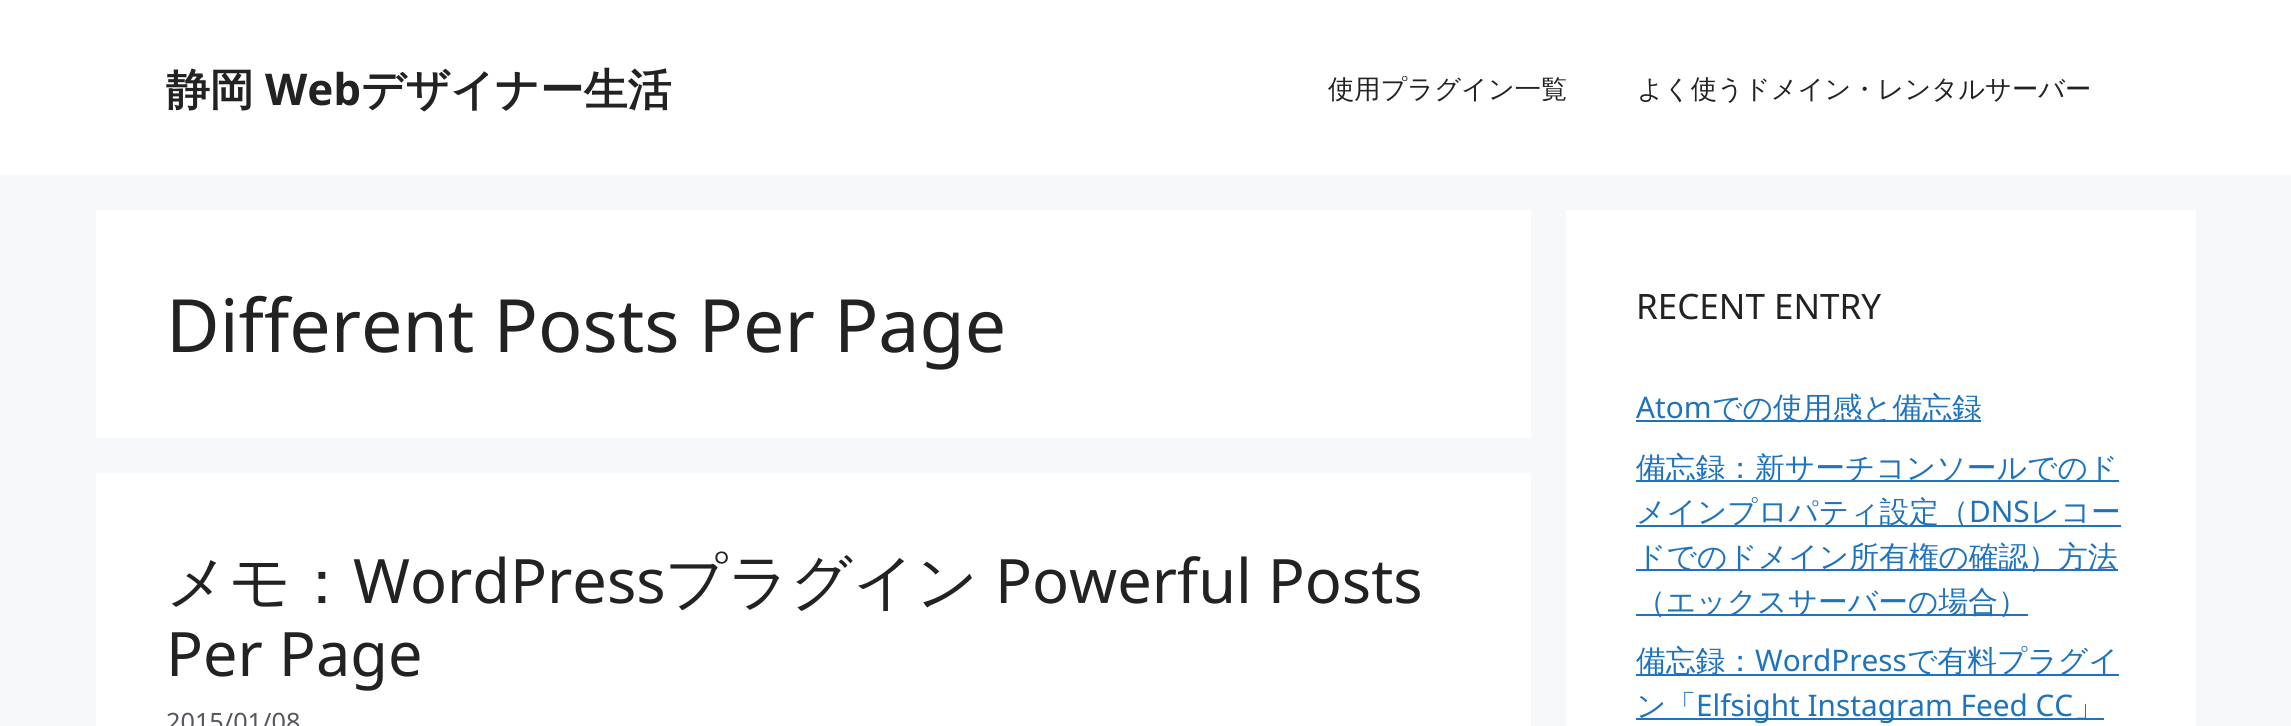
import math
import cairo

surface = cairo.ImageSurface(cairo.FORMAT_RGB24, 2291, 726)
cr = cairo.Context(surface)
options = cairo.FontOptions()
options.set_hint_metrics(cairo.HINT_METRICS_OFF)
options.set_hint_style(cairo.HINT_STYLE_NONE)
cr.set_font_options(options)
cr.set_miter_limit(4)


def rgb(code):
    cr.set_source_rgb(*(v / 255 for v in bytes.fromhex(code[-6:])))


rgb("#f7f8f9")
cr.paint()
for x, y, w, h, color in [
    (0, 0, 2291, 175, "#ffffff"),
    (96, 210, 1435, 228, "#ffffff"),
    (96, 473, 1435, 253, "#ffffff"),
    (1566, 210, 630, 516, "#ffffff"),
    (1636, 420, 345, 2, "#1e73be"),
    (1636, 480, 483, 2, "#1e73be"),
    (1636, 525, 485, 2, "#1e73be"),
    (1636, 569, 482, 2, "#1e73be"),
    (1636, 614, 392, 2, "#1e73be"),
    (1636, 674, 483, 2, "#1e73be"),
    (1636, 718, 468, 2, "#1e73be"),
]:
    rgb(color)
    cr.rectangle(x, y, w, h)
    cr.fill()
cr.select_font_face("WenQuanYi Zen Hei", cairo.FONT_SLANT_NORMAL, cairo.FONT_WEIGHT_BOLD)
cr.set_font_size(43.75)
rgb("#222222")
cr.move_to(166, 105)
cr.show_text("静岡")
cr.select_font_face("Noto Sans", cairo.FONT_SLANT_NORMAL, cairo.FONT_WEIGHT_BOLD)
cr.move_to(265, 105)
cr.show_text("Web")
cr.select_font_face("WenQuanYi Zen Hei", cairo.FONT_SLANT_NORMAL, cairo.FONT_WEIGHT_BOLD)
cr.move_to(361, 105)
cr.show_text("デザイナー生活")
cr.select_font_face("WenQuanYi Zen Hei Medium")
cr.set_font_size(26.25)
cr.move_to(1328, 98)
cr.show_text("使用プラグイン一覧")
cr.move_to(1637, 98)
cr.show_text("よく使うドメイン・レンタルサーバー")
cr.select_font_face("Noto Sans")
cr.set_font_size(73.5)
cr.move_to(166, 352)
cr.show_text("Different Posts Per Page")
cr.select_font_face("WenQuanYi Zen Hei Medium")
cr.set_font_size(61.25)
cr.move_to(166, 603)
cr.show_text("メモ：")
cr.select_font_face("Noto Sans")
cr.move_to(353, 603)
cr.show_text("WordPress")
cr.select_font_face("WenQuanYi Zen Hei Medium")
cr.move_to(665, 603)
cr.show_text("プラグイン")
cr.select_font_face("Noto Sans")
cr.move_to(995, 603)
cr.show_text("Powerful Posts")
cr.move_to(166, 676)
cr.show_text("Per Page")
cr.set_font_size(25.25)
rgb("#575760")
cr.move_to(166, 731)
cr.show_text("2015/01/08")
cr.set_font_size(35)
rgb("#222222")
cr.move_to(1636, 319)
cr.show_text("RECENT ENTRY")
cr.set_font_size(29.75)
rgb("#1e73be")
cr.move_to(1636, 418)
cr.show_text("Atom")
cr.select_font_face("WenQuanYi Zen Hei Medium")
for x, y, s in [
    (1712, 418, "での使用感と備忘録"),
    (1636, 478, "備忘録：新サーチコンソールでのド"),
    (1636, 522, "メインプロパティ設定（"),
]:
    cr.move_to(x, y)
    cr.show_text(s)
cr.select_font_face("Noto Sans")
cr.move_to(1969, 522)
cr.show_text("DNS")
cr.select_font_face("WenQuanYi Zen Hei Medium")
for x, y, s in [
    (2030, 522, "レコー"),
    (1636, 567, "ドでのドメイン所有権の確認）方法"),
    (1636, 612, "（エックスサーバーの場合）"),
    (1636, 671, "備忘録："),
]:
    cr.move_to(x, y)
    cr.show_text(s)
cr.select_font_face("Noto Sans")
cr.move_to(1755, 671)
cr.show_text("WordPress")
cr.select_font_face("WenQuanYi Zen Hei Medium")
cr.move_to(1907, 671)
cr.show_text("で有料プラグイ")
cr.move_to(1636, 716)
cr.show_text("ン「")
cr.select_font_face("Noto Sans")
cr.move_to(1696, 716)
cr.show_text("Elfsight Instagram Feed CC")
cr.select_font_face("WenQuanYi Zen Hei Medium")
cr.move_to(2074, 716)
cr.show_text("」")
surface.write_to_png("page.png")
